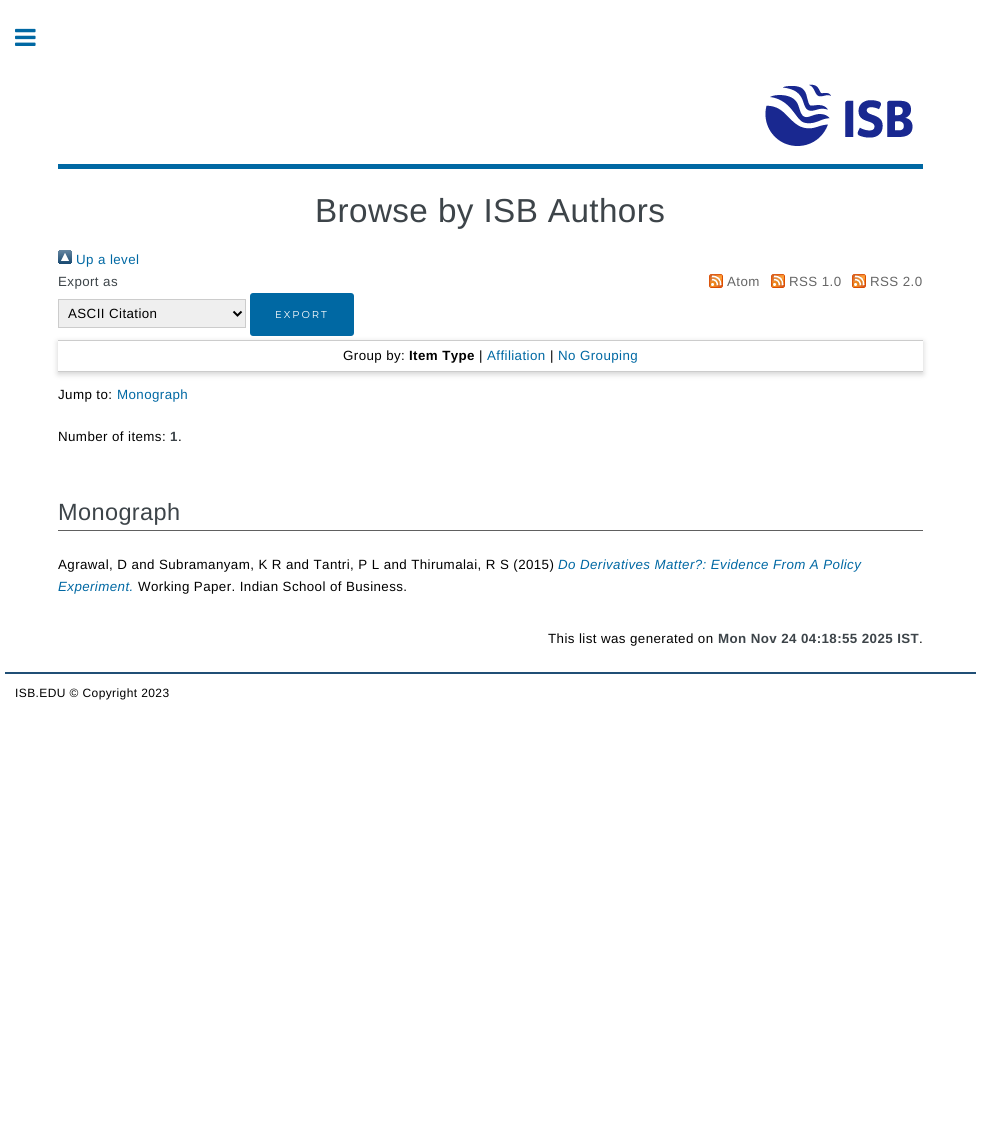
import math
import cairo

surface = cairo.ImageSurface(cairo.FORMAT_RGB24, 981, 1128)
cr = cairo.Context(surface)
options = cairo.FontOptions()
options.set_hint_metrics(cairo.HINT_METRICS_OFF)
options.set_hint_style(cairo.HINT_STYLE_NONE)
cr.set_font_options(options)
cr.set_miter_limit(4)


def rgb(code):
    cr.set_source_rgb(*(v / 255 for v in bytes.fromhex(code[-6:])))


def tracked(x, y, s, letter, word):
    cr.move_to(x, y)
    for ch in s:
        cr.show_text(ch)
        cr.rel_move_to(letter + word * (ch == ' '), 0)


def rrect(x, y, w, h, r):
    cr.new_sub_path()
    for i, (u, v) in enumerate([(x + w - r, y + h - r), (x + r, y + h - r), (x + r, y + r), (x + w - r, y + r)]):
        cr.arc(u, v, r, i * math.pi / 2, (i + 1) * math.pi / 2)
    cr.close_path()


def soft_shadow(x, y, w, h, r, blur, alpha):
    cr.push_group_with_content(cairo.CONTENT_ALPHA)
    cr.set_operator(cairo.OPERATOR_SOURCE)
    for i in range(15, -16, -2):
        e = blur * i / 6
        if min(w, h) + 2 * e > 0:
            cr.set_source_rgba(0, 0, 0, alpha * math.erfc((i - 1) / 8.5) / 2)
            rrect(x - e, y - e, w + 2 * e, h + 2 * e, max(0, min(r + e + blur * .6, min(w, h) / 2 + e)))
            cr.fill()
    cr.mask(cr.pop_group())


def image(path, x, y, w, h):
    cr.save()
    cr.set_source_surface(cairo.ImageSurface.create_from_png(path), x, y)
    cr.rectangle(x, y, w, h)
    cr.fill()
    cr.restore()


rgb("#ffffff")
cr.paint()
image("img/1.png", 15, 28, 21, 18)
rgb("#0068a3")
cr.rectangle(58, 164, 865, 5)
cr.fill()
image("img/2.png", 765, 84, 148, 62)
image("img/3.png", 58, 250, 14, 14)
rgb("#efefef")
cr.rectangle(58.5, 299.5, 187, 28)
cr.fill_preserve()
rgb("#cccccc")
cr.set_line_width(1)
cr.stroke()
cr.new_path()
cr.move_to(233.5, 311.5)
cr.line_to(237.5, 315.5)
cr.line_to(241.5, 311.5)
rgb("#000000")
cr.set_line_width(2)
cr.stroke()
cr.save()
cr.set_fill_rule(cairo.FILL_RULE_EVEN_ODD)
cr.new_path()
cr.move_to(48, 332)
cr.line_to(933, 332)
cr.line_to(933, 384)
cr.line_to(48, 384)
cr.close_path()
cr.move_to(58, 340)
cr.line_to(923, 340)
cr.line_to(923, 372)
cr.line_to(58, 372)
cr.close_path()
cr.clip()
rgb("#646464")
soft_shadow(58, 342, 865, 32, 0, 3, 0.3)
cr.restore()
rgb("#0068a3")
rrect(250, 293, 104, 43, 3)
cr.fill()
image("img/4.png", 709, 274, 14, 14)
image("img/4.png", 771, 274, 14, 14)
image("img/4.png", 852, 274, 14, 14)
for x, y, w, h, color in [
    (58, 340, 865, 1, "#cccccc"),
    (58, 371, 865, 1, "#cccccc"),
    (58, 530, 865, 1, "#606060"),
    (5, 672, 971, 2, "#204f76"),
]:
    rgb(color)
    cr.rectangle(x, y, w, h)
    cr.fill()
cr.select_font_face("Liberation Sans")
cr.set_font_size(33.25)
rgb("#3d4449")
tracked(315, 222, "Browse by ISB Authors", 0.4, 0)
cr.set_font_size(13.35)
rgb("#0068a3")
tracked(76, 264, "Up a level", 0.4, 0)
rgb("#3d4449")
tracked(58, 286, "Export as", 0.4, 0)
rgb("#000000")
tracked(68, 318, "ASCII Citation", 0.4, 0)
cr.select_font_face("Montserrat")
cr.set_font_size(10)
rgb("#ffffff")
tracked(275, 318, "EXPORT", 2, 0)
cr.select_font_face("Liberation Sans")
cr.set_font_size(13.35)
rgb("#666666")
for x, y, s in [
    (727, 286, "Atom"),
    (789, 286, "RSS 1.0"),
    (870, 286, "RSS 2.0"),
]:
    tracked(x, y, s, 0.4, 0)
rgb("#000000")
tracked(343, 360, "Group by:", 0.4, 0)
cr.select_font_face("Liberation Sans", cairo.FONT_SLANT_NORMAL, cairo.FONT_WEIGHT_BOLD)
tracked(409, 360, "Item Type", 0.4, 0)
cr.select_font_face("Liberation Sans")
tracked(479, 360, "|", 0.4, 0)
rgb("#0068a3")
tracked(487, 360, "Affiliation", 0.4, 0)
rgb("#000000")
tracked(550, 360, "|", 0.4, 0)
rgb("#0068a3")
tracked(558, 360, "No Grouping", 0.4, 0)
rgb("#000000")
tracked(58, 399, "Jump to:", 0.4, 0)
rgb("#0068a3")
tracked(117, 399, "Monograph", 0.4, 0)
rgb("#000000")
tracked(58, 441, "Number of items:", 0.4, 0)
cr.select_font_face("Liberation Sans", cairo.FONT_SLANT_NORMAL, cairo.FONT_WEIGHT_BOLD)
rgb("#3d4449")
tracked(170, 441, "1", 0.4, 0)
cr.select_font_face("Liberation Sans")
rgb("#000000")
tracked(178, 441, ".", 0.4, 0)
cr.set_font_size(23.5)
rgb("#3d4449")
tracked(58, 520, "Monograph", 0.4, 0)
cr.set_font_size(13.35)
rgb("#000000")
tracked(58, 569, "Agrawal, D and Subramanyam, K R and Tantri, P L and Thirumalai, R S (2015)", 0.4, 0)
cr.select_font_face("Liberation Sans", cairo.FONT_SLANT_ITALIC)
rgb("#0068a3")
tracked(558, 569, "Do Derivatives Matter?: Evidence From A Policy", 0.4, 0)
tracked(58, 591, "Experiment.", 0.4, 0)
cr.select_font_face("Liberation Sans")
rgb("#000000")
tracked(138, 591, "Working Paper. Indian School of Business.", 0.4, 0)
tracked(548, 643, "This list was generated on", 0.4, 0)
cr.select_font_face("Liberation Sans", cairo.FONT_SLANT_NORMAL, cairo.FONT_WEIGHT_BOLD)
rgb("#3d4449")
tracked(718, 643, "Mon Nov 24 04:18:55 2025 IST", 0.4, 0)
cr.select_font_face("Liberation Sans")
rgb("#000000")
tracked(919, 643, ".", 0.4, 0)
cr.set_font_size(12)
tracked(15, 697, "ISB.EDU © Copyright 2023", 0.4, 0)
surface.write_to_png("page.png")
